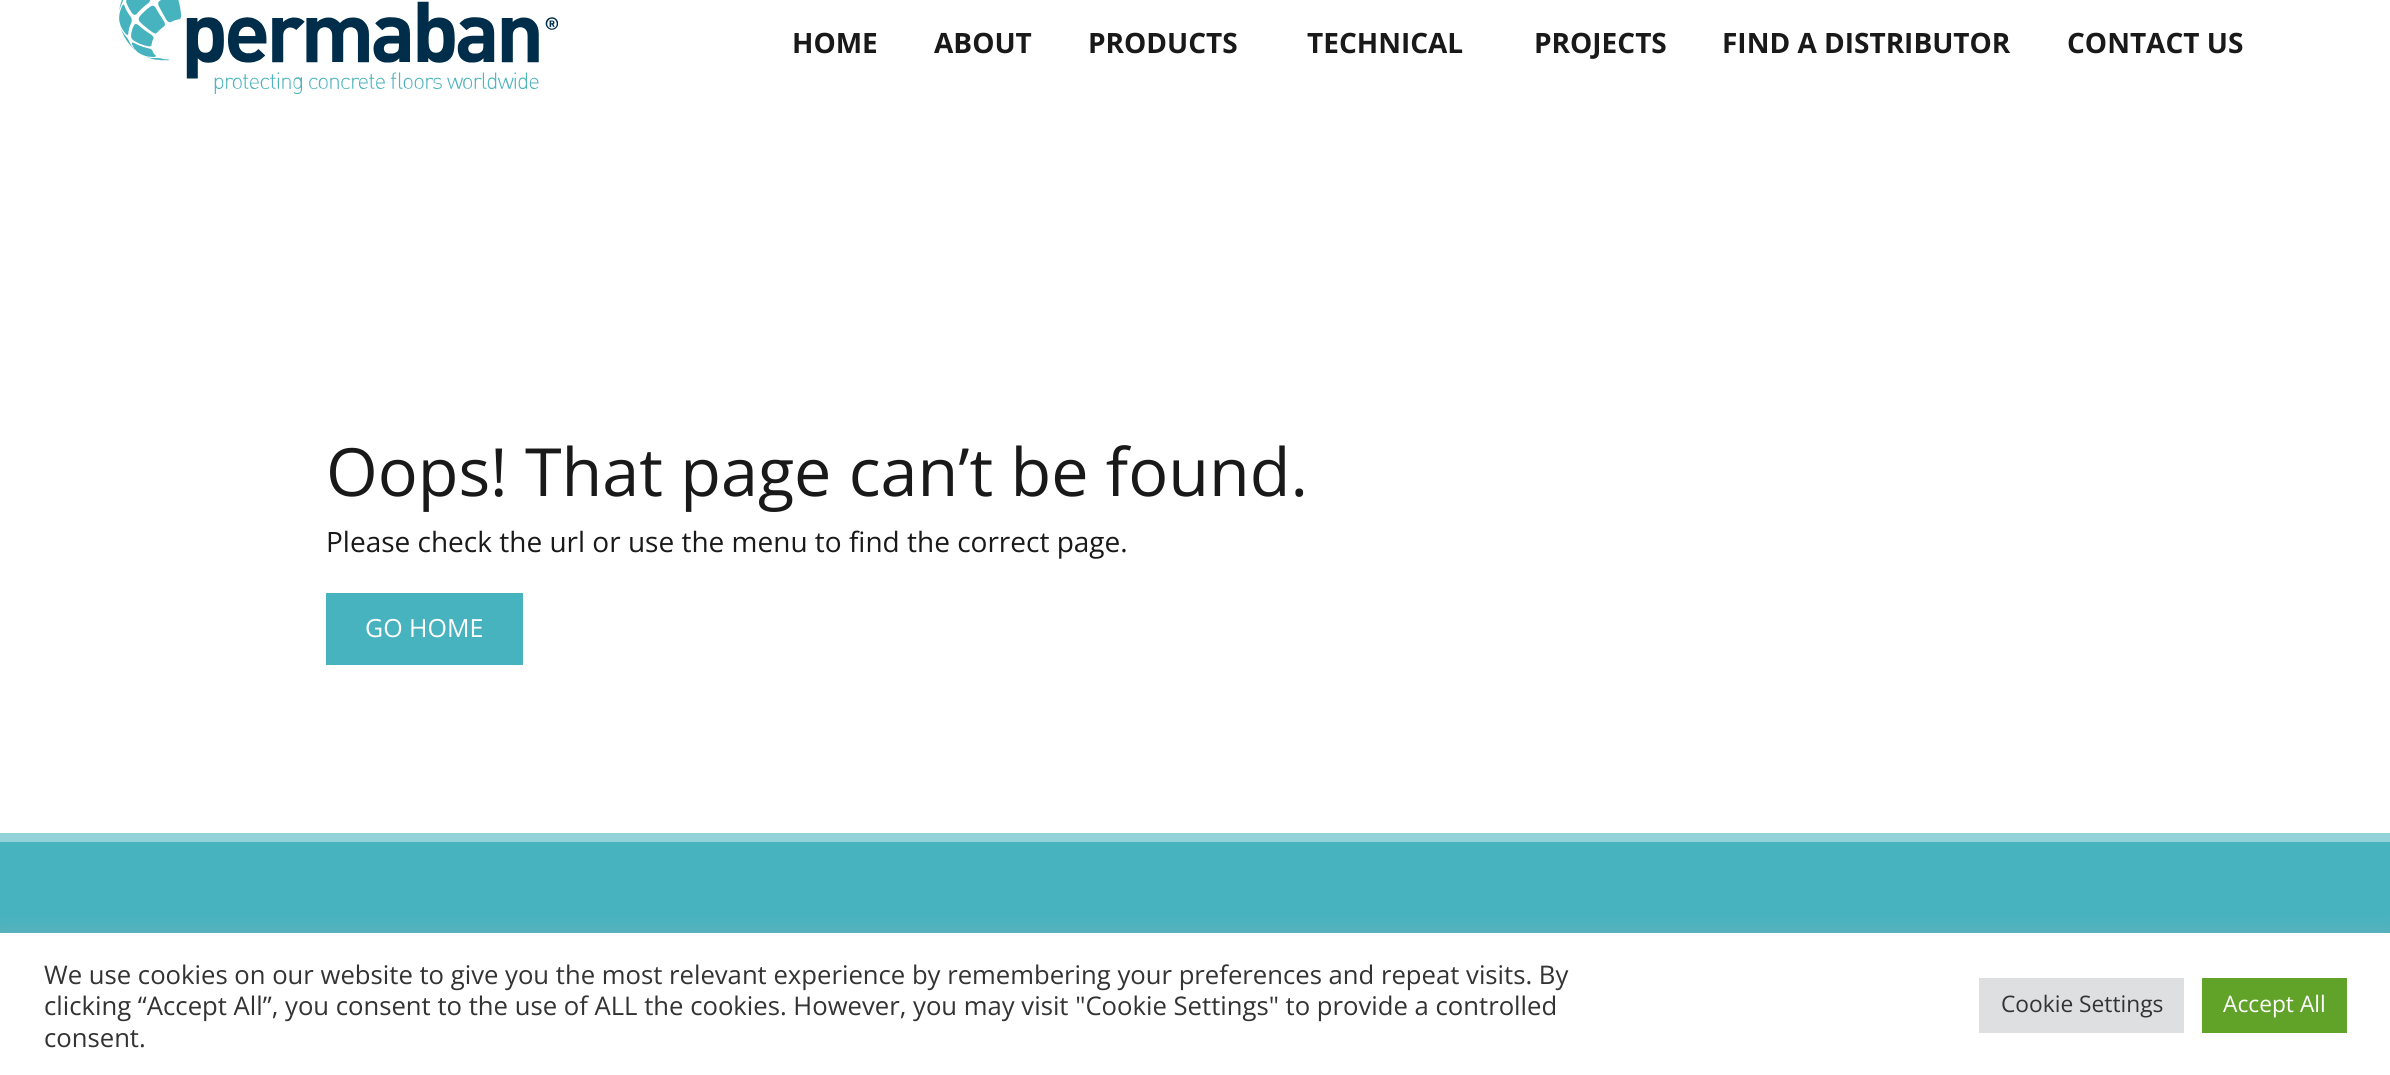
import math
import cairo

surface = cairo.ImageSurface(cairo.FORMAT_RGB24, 2390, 1075)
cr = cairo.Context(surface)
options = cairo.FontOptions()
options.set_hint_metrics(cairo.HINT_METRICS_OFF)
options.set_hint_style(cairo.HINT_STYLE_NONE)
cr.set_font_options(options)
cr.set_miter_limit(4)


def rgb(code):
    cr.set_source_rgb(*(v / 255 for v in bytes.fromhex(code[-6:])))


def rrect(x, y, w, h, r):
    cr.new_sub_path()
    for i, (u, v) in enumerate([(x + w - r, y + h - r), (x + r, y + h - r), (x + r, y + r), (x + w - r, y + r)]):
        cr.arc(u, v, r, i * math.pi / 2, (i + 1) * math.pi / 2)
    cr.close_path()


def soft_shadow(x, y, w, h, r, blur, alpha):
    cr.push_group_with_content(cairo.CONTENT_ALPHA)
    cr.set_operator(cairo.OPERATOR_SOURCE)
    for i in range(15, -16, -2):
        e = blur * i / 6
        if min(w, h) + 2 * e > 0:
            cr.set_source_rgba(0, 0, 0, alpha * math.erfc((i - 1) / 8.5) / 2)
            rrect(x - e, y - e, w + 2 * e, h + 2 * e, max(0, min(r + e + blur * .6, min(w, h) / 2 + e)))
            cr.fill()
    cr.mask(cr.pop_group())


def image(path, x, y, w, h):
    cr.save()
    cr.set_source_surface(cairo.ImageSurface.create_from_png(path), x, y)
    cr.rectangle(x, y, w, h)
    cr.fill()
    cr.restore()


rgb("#ffffff")
cr.paint()
image("img/1.png", 119, 0, 439, 94)
for x, y, w, h, color in [
    (326, 593, 197, 72, "#47b3bf"),
    (0, 842, 2390, 91, "#47b3bf"),
    (0, 833, 2390, 9, "#93d2d9"),
]:
    rgb(color)
    cr.rectangle(x, y, w, h)
    cr.fill()
rgb("#acabab")
soft_shadow(0, 931, 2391, 144, 0, 9, 0.3)
for x, y, w, h, color in [
    (0, 933, 2390, 142, "#ffffff"),
    (1979, 978, 205, 55, "#dedfe0"),
    (2202, 978, 145, 55, "#61a229"),
]:
    rgb(color)
    cr.rectangle(x, y, w, h)
    cr.fill()
cr.select_font_face("Open Sans", cairo.FONT_SLANT_NORMAL, cairo.FONT_WEIGHT_BOLD)
cr.set_font_size(28)
rgb("#191919")
for x, y, s in [
    (792, 53, "HOME"),
    (934, 53, "ABOUT"),
    (1088, 53, "PRODUCTS"),
    (1307, 53, "TECHNICAL"),
    (1534, 53, "PROJECTS"),
    (1722, 53, "FIND A DISTRIBUTOR"),
    (2067, 53, "CONTACT US"),
]:
    cr.move_to(x, y)
    cr.show_text(s)
cr.select_font_face("Open Sans")
cr.set_font_size(66.5)
cr.move_to(326, 496)
cr.show_text("Oops! That page can’t be found.")
cr.set_font_size(28)
cr.move_to(326, 552)
cr.show_text("Please check the url or use the menu to find the correct page.")
cr.set_font_size(25)
rgb("#fefefe")
cr.move_to(365, 637)
cr.show_text("GO HOME")
cr.set_font_size(25.67)
rgb("#333333")
for x, y, s in [
    (44, 984, "We use cookies on our website to give you the most relevant experience by remembering your preferences and repeat visits. By"),
    (44, 1015, "clicking “Accept All”, you consent to the use of ALL the cookies. However, you may visit \"Cookie Settings\" to provide a controlled"),
    (44, 1047, "consent."),
]:
    cr.move_to(x, y)
    cr.show_text(s)
cr.set_font_size(22.75)
cr.move_to(2001, 1012)
cr.show_text("Cookie Settings")
rgb("#fefefe")
cr.move_to(2223, 1012)
cr.show_text("Accept All")
surface.write_to_png("page.png")
